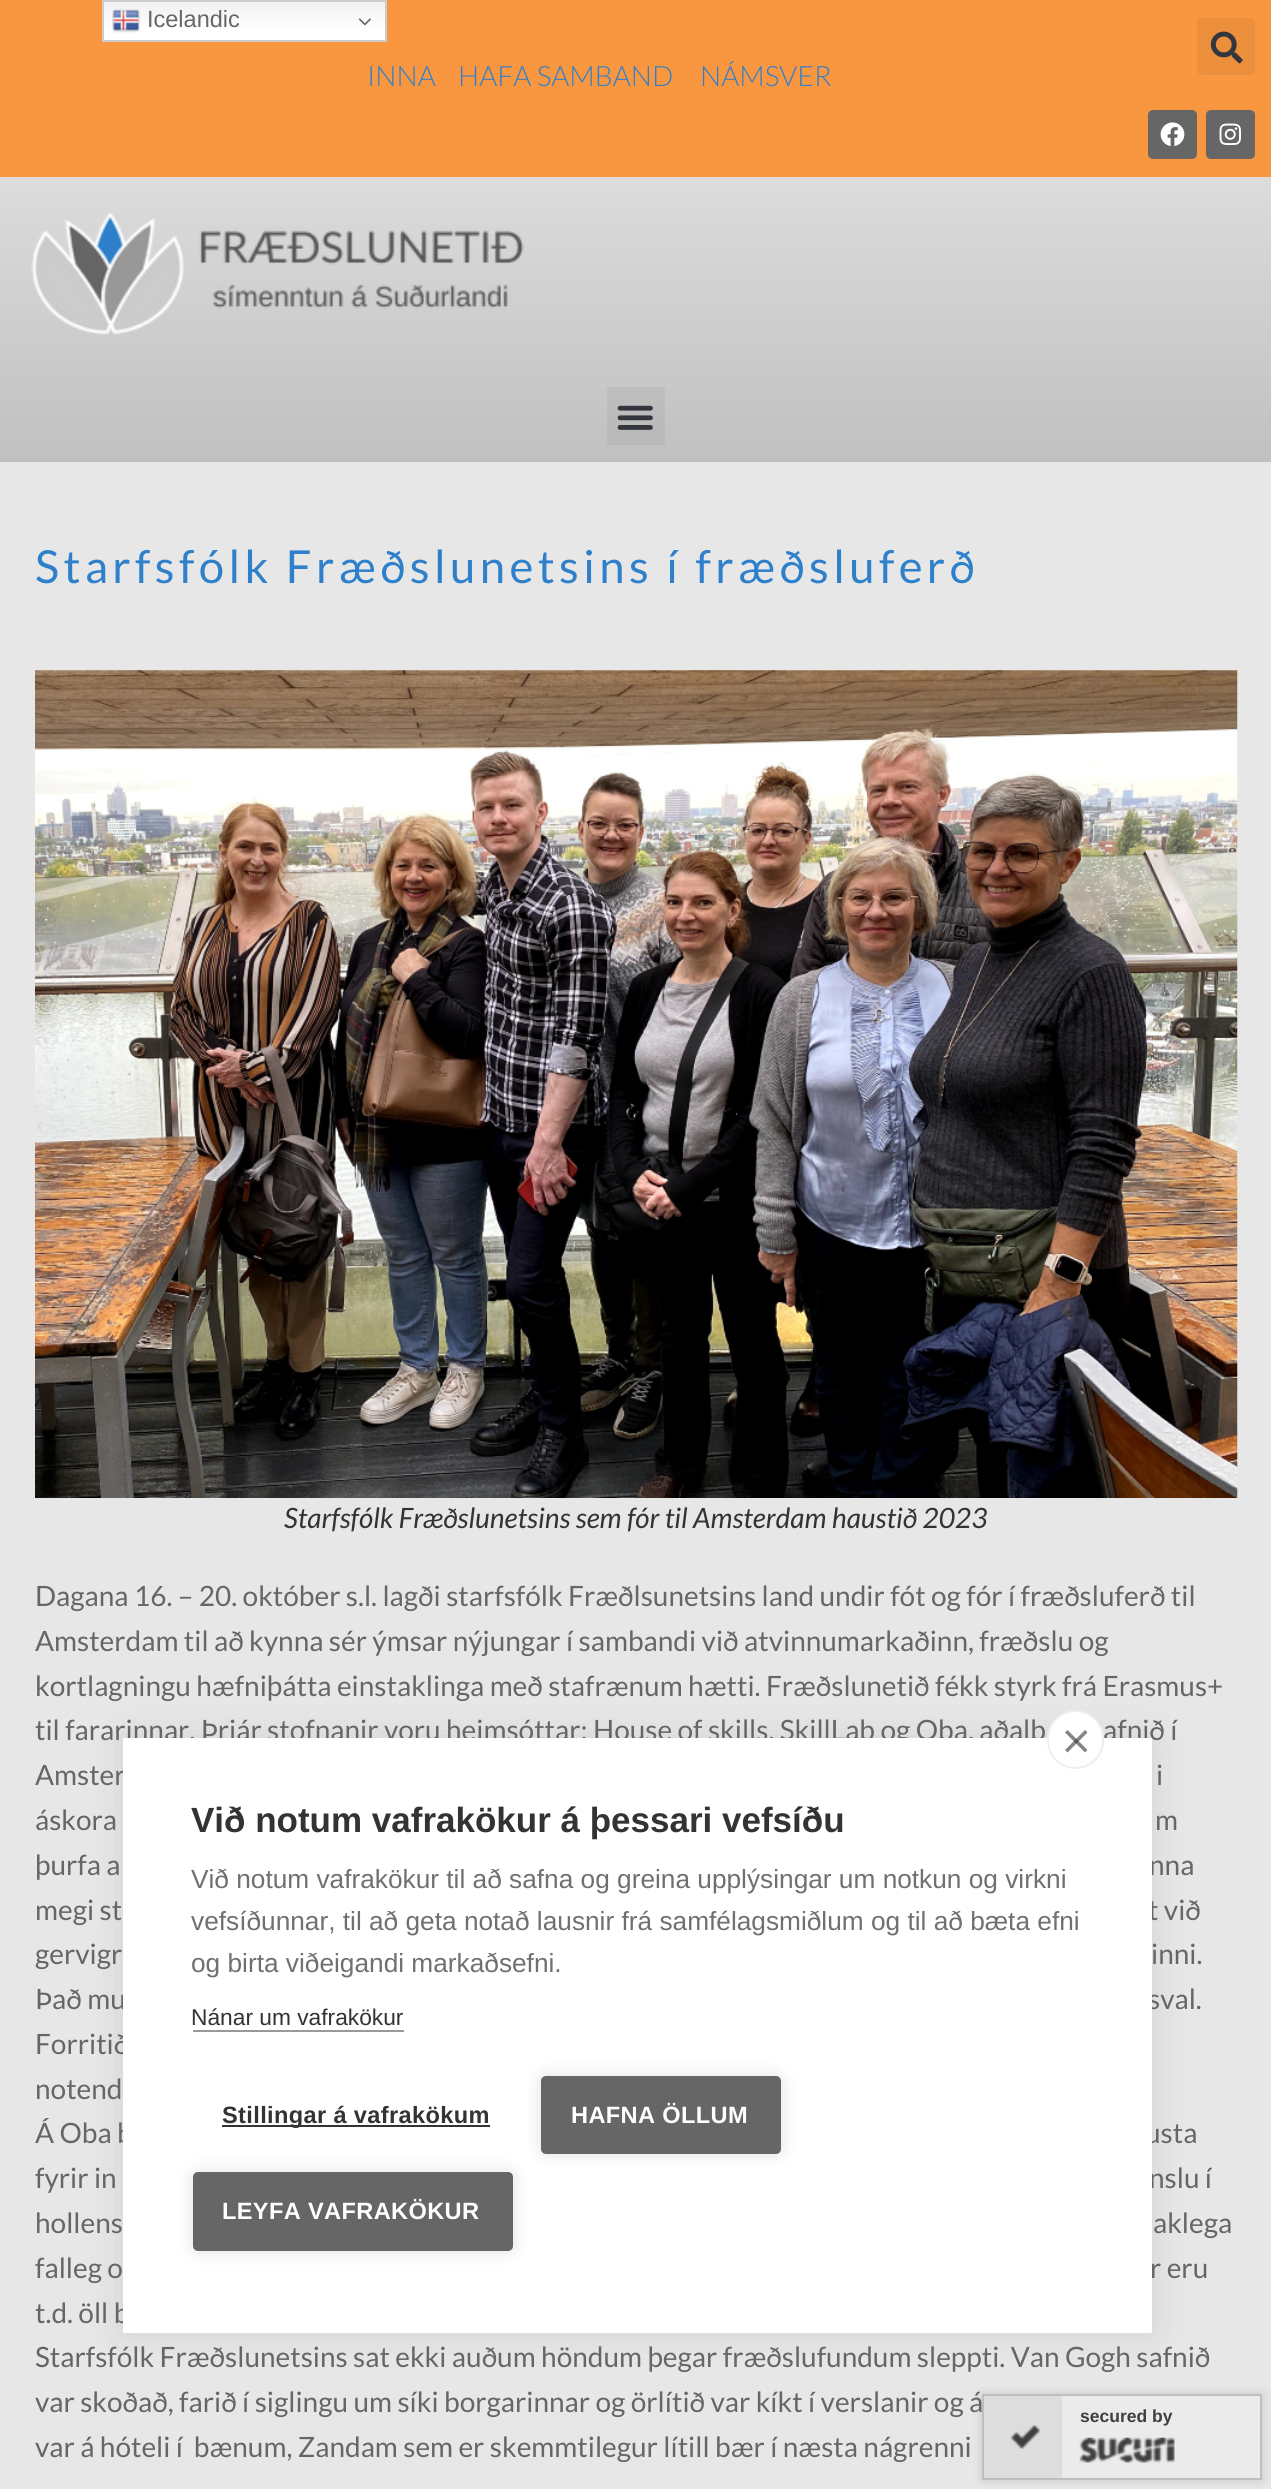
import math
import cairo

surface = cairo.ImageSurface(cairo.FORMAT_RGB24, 1271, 2489)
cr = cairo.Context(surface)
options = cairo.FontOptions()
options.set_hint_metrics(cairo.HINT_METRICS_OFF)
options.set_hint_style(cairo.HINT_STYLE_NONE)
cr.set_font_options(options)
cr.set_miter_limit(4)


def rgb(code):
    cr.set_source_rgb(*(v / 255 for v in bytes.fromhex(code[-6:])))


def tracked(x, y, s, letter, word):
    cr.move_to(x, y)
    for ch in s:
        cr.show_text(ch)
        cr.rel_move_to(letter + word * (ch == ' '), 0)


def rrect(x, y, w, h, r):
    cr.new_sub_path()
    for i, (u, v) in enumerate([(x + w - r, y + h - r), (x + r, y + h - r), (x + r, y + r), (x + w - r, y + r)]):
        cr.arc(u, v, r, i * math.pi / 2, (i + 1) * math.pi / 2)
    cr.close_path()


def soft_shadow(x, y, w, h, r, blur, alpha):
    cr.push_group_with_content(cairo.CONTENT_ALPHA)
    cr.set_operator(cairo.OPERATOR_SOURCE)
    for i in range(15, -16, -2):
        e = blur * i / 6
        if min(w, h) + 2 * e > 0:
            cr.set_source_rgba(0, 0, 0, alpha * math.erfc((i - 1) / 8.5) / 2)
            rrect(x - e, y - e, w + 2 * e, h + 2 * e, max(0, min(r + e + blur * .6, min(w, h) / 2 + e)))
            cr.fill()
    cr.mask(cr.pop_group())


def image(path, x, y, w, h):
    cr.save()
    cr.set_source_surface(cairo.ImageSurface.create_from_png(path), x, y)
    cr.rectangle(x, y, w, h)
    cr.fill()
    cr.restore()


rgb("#ffffff")
cr.paint()
gradient = cairo.RadialGradient(0, 0, 0, 0, 0, 1)
gradient.set_matrix(cairo.Matrix(1 / 900, 0, 0, 1 / 12501, -1 * 636 / 900, -1 * 8839 / 12501))
gradient.add_color_stop_rgba(1, 0.906, 0.906, 0.906, 1)
gradient.add_color_stop_rgba(1, 1, 1, 1, 1)
cr.set_source(gradient)
cr.rectangle(0, 462, 1271, 2027)
cr.fill()
rgb("#f89740")
cr.rectangle(0, 0, 1271, 177)
cr.fill()
gradient = cairo.LinearGradient(244, 0, 244, 42)
gradient.add_color_stop_rgba(0, 0.937, 0.937, 0.937, 1)
gradient.add_color_stop_rgba(0.7, 1, 1, 1, 1)
cr.set_source(gradient)
cr.rectangle(104, 2, 281, 38)
cr.fill()
cr.rectangle(103, 1, 283, 40)
rgb("#cccccc")
cr.stroke()
image("img/1.png", 112, 9, 28, 24)
image("img/2.png", 359, 18, 12, 8)
rgb("#ec8f3d")
rrect(1197, 18, 58, 57, 5)
cr.fill()
image("img/3.png", 1210, 31, 33, 33)
rgb("#666666")
rrect(1148, 110, 49, 49, 5)
cr.fill()
image("img/4.png", 1160, 122, 25, 24)
rrect(1206, 110, 49, 49, 5)
cr.fill()
image("img/5.png", 1219, 123, 22, 22)
gradient = cairo.LinearGradient(636, 177, 636, 462)
gradient.add_color_stop_rgba(0, 0.863, 0.863, 0.863, 1)
gradient.add_color_stop_rgba(1, 0.753, 0.753, 0.753, 1)
cr.set_source(gradient)
cr.rectangle(0, 177, 1271, 285)
cr.fill()
image("img/6.png", 31, 213, 493, 122)
cr.set_source_rgba(0, 0, 0, 0.05)
cr.rectangle(607, 387, 58, 58)
cr.fill()
image("img/7.png", 617, 405, 36, 25)
image("img/8.png", 35, 670, 1203, 828)
rgb("#000000")
soft_shadow(123, 1738, 1029, 595, 0, 17.5, 0.1)
soft_shadow(982, 2394, 280, 86, 0, 5, 0.14)
rgb("#ebebeb")
cr.rectangle(1062, 2396, 198, 82)
cr.fill()
cr.rectangle(983, 2395, 278, 84)
rgb("#bebebe")
cr.stroke()
rgb("#dddddd")
cr.rectangle(984, 2396, 78, 82)
cr.fill()
image("img/9.png", 1010, 2424, 30, 25)
image("img/10.png", 1079, 2437, 96, 26)
cr.select_font_face("Liberation Sans")
cr.set_font_size(23.5)
rgb("#666666")
cr.move_to(147, 27)
cr.show_text("Icelandic")
cr.select_font_face("Lato Light")
cr.set_font_size(28)
rgb("#2e80ca")
for x, y, s in [
    (367, 86, "INNA"),
    (458, 86, "HAFA SAMBAND"),
    (700, 86, "NÁMSVER"),
]:
    cr.move_to(x, y)
    cr.show_text(s)
cr.select_font_face("Lato")
cr.set_font_size(45.5)
tracked(35, 583, "Starfsfólk Fræðslunetsins í fræðsluferð", 4.4, 0)
cr.select_font_face("Lato", cairo.FONT_SLANT_ITALIC)
cr.set_font_size(28)
rgb("#333333")
cr.move_to(284, 1528)
cr.show_text("Starfsfólk Fræðslunetsins sem fór til Amsterdam haustið 2023")
cr.select_font_face("Lato")
rgb("#666666")
for x, y, s in [
    (35, 1606, "Dagana 16. – 20. október s.l. lagði starfsfólk Fræðlsunetsins land undir fót og fór í fræðsluferð til"),
    (35, 1651, "Amsterdam til að kynna sér ýmsar nýjungar í sambandi við atvinnumarkaðinn, fræðslu og"),
    (35, 1696, "kortlagningu hæfniþátta einstaklinga með stafrænum hætti. Fræðslunetið fékk styrk frá Erasmus+"),
    (35, 1740, "til fararinnar. Þrjár stofnanir voru heimsóttar; House of skills, SkillLab og Oba, aðalb"),
    (1103, 1740, "afnið í"),
    (35, 1785, "Amster"),
    (1156, 1785, "i"),
    (35, 1830, "áskora"),
    (1155, 1830, "m"),
    (35, 1875, "þurfa a"),
    (1149, 1875, "nna"),
    (35, 1920, "megi st"),
    (1148, 1920, "t við"),
    (35, 1964, "gervigr"),
    (1151, 1964, "inni."),
    (35, 2009, "Það mu"),
    (1148, 2009, "sval."),
    (35, 2054, "Forritið"),
    (35, 2099, "notend"),
    (35, 2143, "Á Oba b"),
    (1145, 2143, "usta"),
    (35, 2188, "fyrir in"),
    (1149, 2188, "nslu í"),
    (35, 2233, "hollens"),
    (1153, 2233, "aklega"),
    (35, 2278, "falleg o"),
    (1150, 2278, "r eru"),
    (35, 2323, "t.d. öll b"),
    (35, 2367, "Starfsfólk Fræðslunetsins sat ekki auðum höndum þegar fræðslufundum sleppti. Van Gogh safnið"),
    (35, 2412, "var skoðað, farið í siglingu um síki borgarinnar og örlítið var kíkt í verslanir og á"),
    (35, 2457, "var á hóteli í  bænum, Zandam sem er skemmtilegur lítill bær í næsta nágrenni"),
]:
    cr.move_to(x, y)
    cr.show_text(s)
rgb("#ffffff")
cr.rectangle(123, 1738, 1029, 595)
cr.fill()
rrect(1048, 1711, 55, 57, 27.5)
cr.fill_preserve()
rgb("#eeeeee")
cr.stroke()
rgb("#858585")
cr.new_path()
cr.move_to(1065, 1750)
cr.line_to(1085, 1730)
cr.line_to(1087.5, 1732.5)
cr.line_to(1067.5, 1752.5)
cr.close_path()
cr.fill()
cr.set_source_rgba(0.2, 0.2, 0.2, 0.6)
cr.new_path()
cr.move_to(1067.5, 1730)
cr.line_to(1087.5, 1750)
cr.line_to(1085, 1752.5)
cr.line_to(1065, 1732.5)
cr.close_path()
cr.fill()
cr.select_font_face("Liberation Sans", cairo.FONT_SLANT_NORMAL, cairo.FONT_WEIGHT_BOLD)
cr.set_font_size(35)
rgb("#333333")
cr.move_to(191, 1832)
cr.show_text("Við notum vafrakökur á þessari vefsíðu")
cr.select_font_face("Liberation Sans")
cr.set_font_size(26.25)
rgb("#707070")
for x, y, s in [
    (191, 1888, "Við notum vafrakökur til að safna og greina upplýsingar um notkun og virkni"),
    (191, 1930, "vefsíðunnar, til að geta notað lausnir frá samfélagsmiðlum og til að bæta efni"),
    (191, 1972, "og birta viðeigandi markaðsefni."),
]:
    cr.move_to(x, y)
    cr.show_text(s)
cr.set_font_size(22.75)
rgb("#333333")
cr.move_to(191, 2025)
cr.show_text("Nánar um vafrakökur")
rgb("#999999")
cr.rectangle(193, 2030, 211, 2)
cr.fill()
rgb("#333333")
cr.rectangle(222, 2125, 268, 2)
cr.fill()
cr.select_font_face("Liberation Sans", cairo.FONT_SLANT_NORMAL, cairo.FONT_WEIGHT_BOLD)
cr.set_font_size(23.6)
tracked(222, 2123, "Stillingar á vafrakökum", 0.35, 0)
rgb("#000000")
soft_shadow(541, 2076, 240, 78, 5, 9, 0.12)
rgb("#666666")
rrect(541, 2076, 240, 78, 5)
cr.fill()
rgb("#ffffff")
tracked(571, 2123, "HAFNA ÖLLUM", 0.35, 0)
rgb("#000000")
soft_shadow(193, 2172, 320, 79, 5, 9, 0.12)
rgb("#666666")
rrect(193, 2172, 320, 79, 5)
cr.fill()
rgb("#ffffff")
tracked(222, 2219, "LEYFA VAFRAKÖKUR", 0.35, 0)
cr.set_font_size(17.5)
rgb("#3f3f3f")
cr.move_to(1080, 2422)
cr.show_text("secured by")
surface.write_to_png("page.png")
